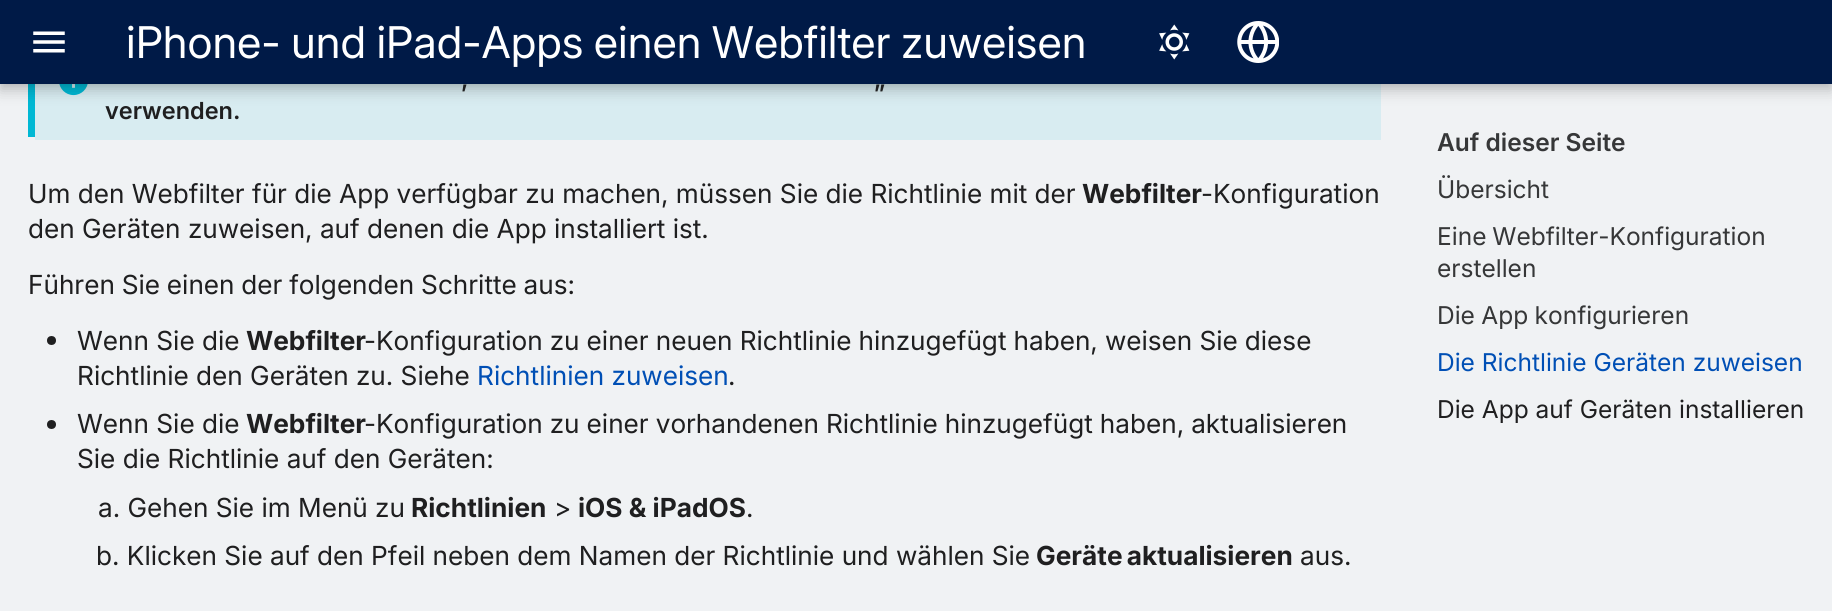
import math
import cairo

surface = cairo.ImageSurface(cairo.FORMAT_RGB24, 1832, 611)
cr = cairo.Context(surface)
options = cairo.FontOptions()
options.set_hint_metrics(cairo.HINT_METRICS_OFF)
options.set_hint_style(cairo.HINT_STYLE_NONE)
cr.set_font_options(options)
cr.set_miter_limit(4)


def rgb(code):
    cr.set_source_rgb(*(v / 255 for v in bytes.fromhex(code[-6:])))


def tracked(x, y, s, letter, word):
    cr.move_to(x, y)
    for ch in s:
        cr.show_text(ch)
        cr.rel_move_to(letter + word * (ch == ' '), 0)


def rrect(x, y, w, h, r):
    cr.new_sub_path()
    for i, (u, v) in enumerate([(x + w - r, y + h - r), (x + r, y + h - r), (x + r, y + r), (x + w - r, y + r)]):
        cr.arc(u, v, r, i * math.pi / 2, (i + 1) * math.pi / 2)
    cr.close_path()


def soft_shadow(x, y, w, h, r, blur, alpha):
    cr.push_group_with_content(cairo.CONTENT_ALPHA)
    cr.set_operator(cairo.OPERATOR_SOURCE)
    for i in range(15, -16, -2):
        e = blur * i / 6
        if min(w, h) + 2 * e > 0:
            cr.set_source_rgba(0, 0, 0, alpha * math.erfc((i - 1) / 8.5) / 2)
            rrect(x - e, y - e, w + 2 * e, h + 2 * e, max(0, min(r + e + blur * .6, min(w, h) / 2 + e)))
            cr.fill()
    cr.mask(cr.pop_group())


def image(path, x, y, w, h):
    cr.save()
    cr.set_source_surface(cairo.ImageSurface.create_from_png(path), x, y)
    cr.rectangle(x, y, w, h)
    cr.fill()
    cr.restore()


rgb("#f0f2f4")
cr.paint()
rgb("#00b8d4")
cr.rectangle(28, 84, 7, 53)
cr.fill()
cr.save()
cr.rectangle(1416, 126, 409, 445)
cr.clip()
cr.set_fill_rule(cairo.FILL_RULE_EVEN_ODD)
cr.new_path()
cr.move_to(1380, 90)
cr.line_to(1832, 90)
cr.line_to(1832, 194)
cr.line_to(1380, 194)
cr.close_path()
cr.move_to(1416, 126)
cr.line_to(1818, 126)
cr.line_to(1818, 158)
cr.line_to(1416, 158)
cr.close_path()
cr.clip()
rgb("#f0f2f4")
soft_shadow(1402, 112, 430, 60, 0, 7, 1)
cr.restore()
cr.set_source_rgba(0, 0.722, 0.831, 0.1)
cr.rectangle(35, 84, 1346, 56)
cr.fill()
image("img/4.png", 59, 84, 29, 12)
rgb("#000000")
soft_shadow(0, 7, 1832, 84, 0, 7, 0.2)
soft_shadow(0, 0, 1832, 84, 0, 3.5, 0.1)
rgb("#001a47")
cr.rectangle(0, 0, 1832, 84)
cr.fill()
image("img/1.png", 33, 31, 32, 22)
image("img/2.png", 1159, 24, 31, 36)
image("img/3.png", 1237, 21, 42, 42)
rgb("#1f1f20")
cr.arc(51.5, 340.5, 4.5, 0, 2 * math.pi)
cr.fill()
cr.arc(51.5, 424.5, 4.5, 0, 2 * math.pi)
cr.fill()
cr.select_font_face("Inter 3")
cr.set_font_size(43.75)
rgb("#ffffff")
tracked(126, 58, "iPhone- und iPad-Apps einen Webfilter zuweisen", 0, -1)
cr.select_font_face("Inter SemiBold")
cr.set_font_size(23.5)
rgb("#1f1f20")
for x, y, s in [
    (461, 87, ","),
    (874, 87, "„"),
    (105, 119, "verwenden."),
]:
    cr.move_to(x, y)
    cr.show_text(s)
cr.select_font_face("Inter")
cr.set_font_size(26.25)
cr.move_to(28, 203)
cr.show_text("Um den Webfilter für die App verfügbar zu machen, müssen Sie die Richtlinie mit der")
cr.select_font_face("Inter", cairo.FONT_SLANT_NORMAL, cairo.FONT_WEIGHT_BOLD)
cr.move_to(1082, 203)
cr.show_text("Webfilter")
cr.select_font_face("Inter")
cr.move_to(1201, 203)
cr.show_text("-Konfiguration")
cr.move_to(28, 238)
cr.show_text("den Geräten zuweisen, auf denen die App installiert ist.")
tracked(28, 294, "Führen Sie einen der folgenden Schritte aus:", 0, -0.5)
cr.move_to(77, 350)
cr.show_text("Wenn Sie die")
cr.select_font_face("Inter", cairo.FONT_SLANT_NORMAL, cairo.FONT_WEIGHT_BOLD)
cr.move_to(246, 350)
cr.show_text("Webfilter")
cr.select_font_face("Inter")
tracked(364, 350, "-Konfiguration zu einer neuen Richtlinie hinzugefügt haben, weisen Sie diese", 0, -0.25)
cr.move_to(77, 385)
cr.show_text("Richtlinie den Geräten zu. Siehe")
rgb("#004fb5")
cr.move_to(477, 385)
cr.show_text("Richtlinien zuweisen")
rgb("#1f1f20")
cr.move_to(728, 385)
cr.show_text(".")
cr.move_to(77, 433)
cr.show_text("Wenn Sie die")
cr.select_font_face("Inter", cairo.FONT_SLANT_NORMAL, cairo.FONT_WEIGHT_BOLD)
cr.move_to(246, 433)
cr.show_text("Webfilter")
cr.select_font_face("Inter")
tracked(364, 433, "-Konfiguration zu einer vorhandenen Richtlinie hinzugefügt haben, aktualisieren", 0, -0.25)
cr.move_to(77, 468)
cr.show_text("Sie die Richtlinie auf den Geräten:")
cr.move_to(98, 517)
cr.show_text("a. Gehen Sie im Menü zu")
cr.select_font_face("Inter", cairo.FONT_SLANT_NORMAL, cairo.FONT_WEIGHT_BOLD)
cr.move_to(411, 517)
cr.show_text("Richtlinien")
cr.select_font_face("Inter")
cr.move_to(554, 517)
cr.show_text(">")
cr.select_font_face("Inter", cairo.FONT_SLANT_NORMAL, cairo.FONT_WEIGHT_BOLD)
cr.move_to(578, 517)
cr.show_text("iOS & iPadOS")
cr.select_font_face("Inter")
cr.move_to(746, 517)
cr.show_text(".")
cr.move_to(96, 565)
cr.show_text("b. Klicken Sie auf den Pfeil neben dem Namen der Richtlinie und wählen Sie")
cr.select_font_face("Inter", cairo.FONT_SLANT_NORMAL, cairo.FONT_WEIGHT_BOLD)
tracked(1036, 565, "Geräte aktualisieren", 0, -2)
cr.select_font_face("Inter")
cr.move_to(1300, 565)
cr.show_text("aus.")
cr.select_font_face("Inter SemiBold")
cr.set_font_size(24.5)
rgb("#363738")
cr.move_to(1437, 151)
cr.show_text("Auf dieser Seite")
cr.select_font_face("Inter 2")
cr.move_to(1437, 198)
cr.show_text("Übersicht")
tracked(1437, 245, "Eine Webfilter-Konfiguration", 0, -1)
cr.move_to(1437, 277)
cr.show_text("erstellen")
tracked(1437, 324, "Die App konfigurieren", 0, -0.5)
rgb("#004fb5")
cr.move_to(1437, 371)
cr.show_text("Die Richtlinie Geräten zuweisen")
rgb("#1f1f20")
cr.move_to(1437, 418)
cr.show_text("Die App auf Geräten installieren")
surface.write_to_png("page.png")
